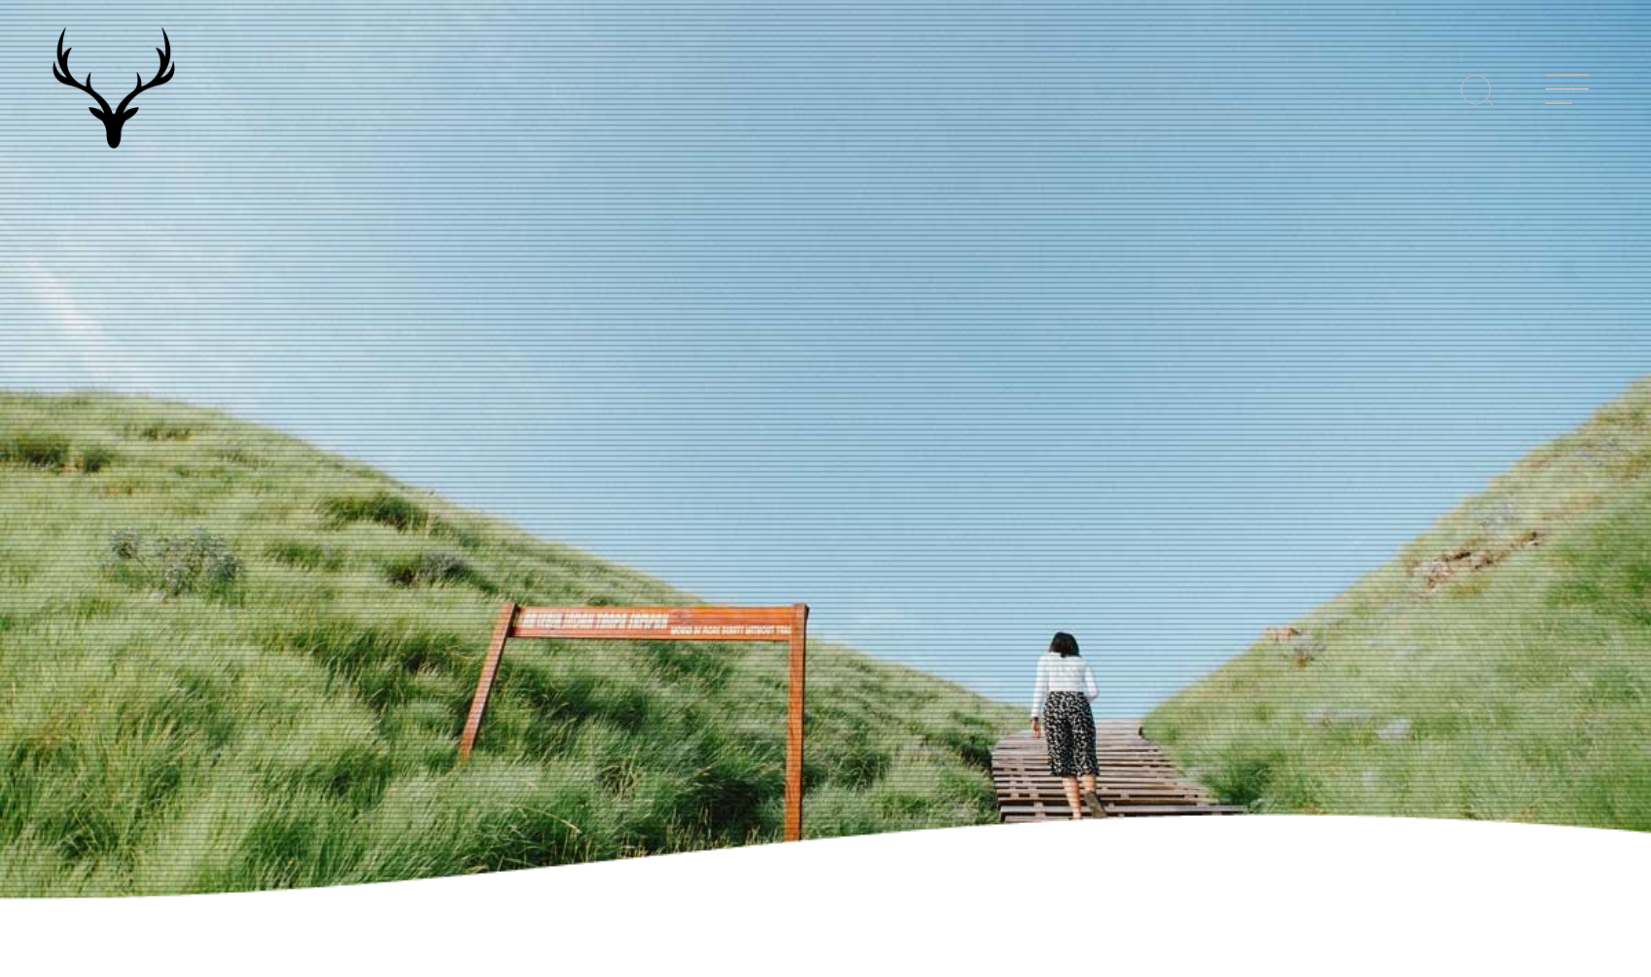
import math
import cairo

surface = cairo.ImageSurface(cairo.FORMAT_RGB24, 1651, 977)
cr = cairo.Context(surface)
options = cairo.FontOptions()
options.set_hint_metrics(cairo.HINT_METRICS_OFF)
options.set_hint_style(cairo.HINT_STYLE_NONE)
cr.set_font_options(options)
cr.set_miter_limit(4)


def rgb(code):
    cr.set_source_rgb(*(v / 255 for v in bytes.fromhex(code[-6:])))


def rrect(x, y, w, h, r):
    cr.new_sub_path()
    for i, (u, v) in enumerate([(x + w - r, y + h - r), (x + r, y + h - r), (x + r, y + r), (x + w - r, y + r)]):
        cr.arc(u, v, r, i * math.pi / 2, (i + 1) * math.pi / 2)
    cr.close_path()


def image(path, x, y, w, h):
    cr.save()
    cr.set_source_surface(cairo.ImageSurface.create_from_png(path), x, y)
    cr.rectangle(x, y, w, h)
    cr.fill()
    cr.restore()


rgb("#ffffff")
cr.paint()
image("img/1.png", 0, 0, 1651, 900)
image("img/2.png", 0, 0, 1651, 899)
image("img/3.png", 0, 813, 1651, 150)
image("img/4.png", 52, 26, 123, 123)
image("img/5.png", 1460, 74, 33, 32)
rgb("#bbbbbb")
rrect(1545, 88, 44, 2, 1)
cr.fill()
rrect(1545, 74, 44, 2, 1)
cr.fill()
rrect(1545, 102, 27, 2, 1)
cr.fill()
surface.write_to_png("page.png")
